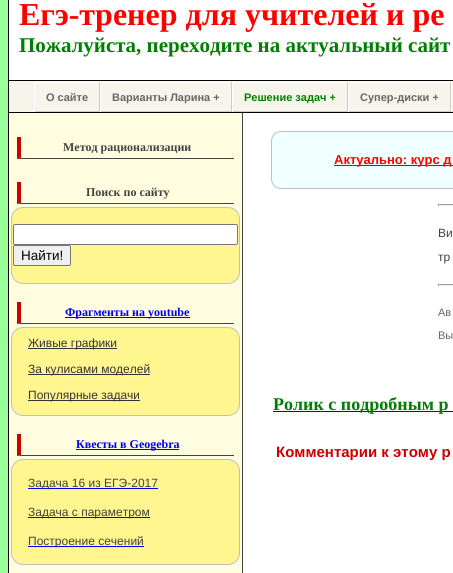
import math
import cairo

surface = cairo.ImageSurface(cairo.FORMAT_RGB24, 453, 573)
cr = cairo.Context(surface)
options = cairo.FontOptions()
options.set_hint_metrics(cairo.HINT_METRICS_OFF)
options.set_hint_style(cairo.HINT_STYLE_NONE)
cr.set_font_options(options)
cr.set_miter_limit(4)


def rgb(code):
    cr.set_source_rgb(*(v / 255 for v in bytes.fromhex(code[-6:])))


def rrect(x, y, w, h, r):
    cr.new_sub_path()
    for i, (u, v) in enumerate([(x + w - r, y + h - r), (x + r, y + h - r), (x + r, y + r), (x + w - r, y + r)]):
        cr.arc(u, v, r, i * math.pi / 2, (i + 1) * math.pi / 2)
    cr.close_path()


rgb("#99ff99")
cr.paint()
for x, y, w, h, color in [
    (9, 0, 444, 573, "#ffffff"),
    (9, 81, 444, 31, "#f7f5eb"),
    (8, 80, 445, 1, "#000000"),
    (8, 112, 445, 1, "#000000"),
    (8, 112, 1, 461, "#000000"),
    (8, 0, 1, 113, "#000000"),
    (34, 82, 419, 1, "#ffffff"),
    (99, 82, 1, 30, "#cccccc"),
    (34, 111, 66, 1, "#cccccc"),
    (34, 82, 1, 30, "#ffffff"),
    (231, 82, 1, 30, "#cccccc"),
    (100, 111, 132, 1, "#cccccc"),
    (100, 82, 1, 30, "#ffffff"),
    (347, 82, 1, 30, "#cccccc"),
    (232, 111, 116, 1, "#cccccc"),
    (232, 82, 1, 30, "#ffffff"),
    (450, 82, 1, 30, "#cccccc"),
    (348, 111, 105, 1, "#cccccc"),
    (348, 82, 1, 30, "#ffffff"),
    (451, 82, 1, 30, "#ffffff"),
    (9, 113, 233, 460, "#fffddf"),
    (242, 113, 1, 460, "#424242"),
]:
    rgb(color)
    cr.rectangle(x, y, w, h)
    cr.fill()
cr.new_path()
cr.move_to(234, 159)
cr.line_to(17, 159)
cr.line_to(21, 158)
cr.line_to(234, 158)
cr.close_path()
cr.fill()
rgb("#cc0000")
cr.new_path()
cr.move_to(17, 159)
cr.line_to(17, 137)
cr.line_to(21, 137)
cr.line_to(21, 158)
cr.close_path()
cr.fill()
rgb("#424242")
cr.new_path()
cr.move_to(234, 204)
cr.line_to(17, 204)
cr.line_to(21, 203)
cr.line_to(234, 203)
cr.close_path()
cr.fill()
rgb("#cc0000")
cr.new_path()
cr.move_to(17, 204)
cr.line_to(17, 182)
cr.line_to(21, 182)
cr.line_to(21, 203)
cr.close_path()
cr.fill()
rgb("#fff68f")
rrect(11.5, 207.5, 228, 76, 11.5)
cr.fill_preserve()
rgb("#c0c0c0")
cr.set_line_width(1)
cr.stroke()
rgb("#ffffff")
rrect(13.5, 224.5, 224, 20, 1.5)
cr.fill_preserve()
rgb("#767676")
cr.stroke()
rgb("#efefef")
rrect(13.5, 245.5, 57, 20, 1.5)
cr.fill_preserve()
rgb("#767676")
cr.stroke()
rgb("#424242")
cr.new_path()
cr.move_to(234, 324)
cr.line_to(17, 324)
cr.line_to(21, 323)
cr.line_to(234, 323)
cr.close_path()
cr.fill()
rgb("#cc0000")
cr.new_path()
cr.move_to(17, 324)
cr.line_to(17, 302)
cr.line_to(21, 302)
cr.line_to(21, 323)
cr.close_path()
cr.fill()
rgb("#0000ee")
cr.rectangle(65, 317, 125, 1)
cr.fill()
rgb("#fff68f")
rrect(11.5, 327.5, 228, 88, 11.5)
cr.fill_preserve()
rgb("#c0c0c0")
cr.stroke()
for x, y, w, h, color in [
    (28, 348, 89, 1, "#333333"),
    (28, 374, 122, 1, "#333333"),
    (28, 400, 112, 1, "#333333"),
]:
    rgb(color)
    cr.rectangle(x, y, w, h)
    cr.fill()
rgb("#424242")
cr.new_path()
cr.move_to(234, 456)
cr.line_to(17, 456)
cr.line_to(21, 455)
cr.line_to(234, 455)
cr.close_path()
cr.fill()
rgb("#cc0000")
cr.new_path()
cr.move_to(17, 456)
cr.line_to(17, 434)
cr.line_to(21, 434)
cr.line_to(21, 455)
cr.close_path()
cr.fill()
rgb("#0000ee")
cr.rectangle(76, 449, 103, 1)
cr.fill()
rgb("#fff68f")
rrect(11.5, 459.5, 228, 105, 11.5)
cr.fill_preserve()
rgb("#c0c0c0")
cr.stroke()
for x, y, w, h, color in [
    (28, 488, 130, 1, "#0000ee"),
    (28, 517, 122, 1, "#0000ee"),
    (28, 546, 116, 1, "#0000ee"),
]:
    rgb(color)
    cr.rectangle(x, y, w, h)
    cr.fill()
rgb("#f0ffff")
rrect(271.5, 131.5, 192, 57, 9.5)
cr.fill_preserve()
rgb("#c0c0c0")
cr.stroke()
for x, y, w, h, color in [
    (334, 165, 119, 1, "#424242"),
    (438, 204, 15, 1, "#9f9f9f"),
    (438, 205, 15, 1, "#eeeeee"),
    (438, 204, 1, 2, "#9f9f9f"),
    (438, 284, 15, 1, "#9f9f9f"),
    (438, 285, 15, 1, "#eeeeee"),
    (438, 284, 1, 2, "#9f9f9f"),
    (273, 411, 180, 1, "#0000ee"),
]:
    rgb(color)
    cr.rectangle(x, y, w, h)
    cr.fill()
cr.select_font_face("Liberation Serif", cairo.FONT_SLANT_NORMAL, cairo.FONT_WEIGHT_BOLD)
cr.set_font_size(32)
rgb("#ff0000")
cr.move_to(19, 25)
cr.show_text("Егэ-тренер для учителей и ре")
cr.set_font_size(21)
rgb("#008000")
cr.move_to(19, 52)
cr.show_text("Пожалуйста, переходите на актуальный сайт")
cr.select_font_face("Liberation Sans", cairo.FONT_SLANT_NORMAL, cairo.FONT_WEIGHT_BOLD)
cr.set_font_size(11)
rgb("#666666")
cr.move_to(46, 101)
cr.show_text("О сайте")
cr.move_to(112, 101)
cr.show_text("Варианты Ларина +")
rgb("#008000")
cr.move_to(244, 101)
cr.show_text("Решение задач +")
rgb("#666666")
cr.move_to(360, 101)
cr.show_text("Супер-диски +")
cr.select_font_face("Liberation Serif", cairo.FONT_SLANT_NORMAL, cairo.FONT_WEIGHT_BOLD)
cr.set_font_size(12)
rgb("#424242")
cr.move_to(63, 151)
cr.show_text("Метод рационализации")
cr.move_to(86, 196)
cr.show_text("Поиск по сайту")
cr.select_font_face("Liberation Sans")
cr.set_font_size(13.5)
rgb("#000000")
cr.move_to(21, 260)
cr.show_text("Найти!")
cr.select_font_face("Liberation Serif", cairo.FONT_SLANT_NORMAL, cairo.FONT_WEIGHT_BOLD)
cr.set_font_size(12)
rgb("#0000ee")
cr.move_to(65, 316)
cr.show_text("Фрагменты на youtube")
cr.select_font_face("Liberation Sans")
rgb("#333333")
for x, y, s in [
    (28, 347, "Живые графики"),
    (28, 373, "За кулисами моделей"),
    (28, 399, "Популярные задачи"),
]:
    cr.move_to(x, y)
    cr.show_text(s)
cr.select_font_face("Liberation Serif", cairo.FONT_SLANT_NORMAL, cairo.FONT_WEIGHT_BOLD)
rgb("#0000ee")
cr.move_to(76, 448)
cr.show_text("Квесты в Geogebra")
cr.select_font_face("Liberation Sans")
rgb("#424242")
for x, y, s in [
    (28, 487, "Задача 16 из ЕГЭ-2017"),
    (28, 516, "Задача с параметром"),
    (28, 545, "Построение сечений"),
]:
    cr.move_to(x, y)
    cr.show_text(s)
cr.select_font_face("Liberation Sans", cairo.FONT_SLANT_NORMAL, cairo.FONT_WEIGHT_BOLD)
cr.set_font_size(13)
rgb("#ff0000")
cr.move_to(334, 164)
cr.show_text("Актуально: курс д")
cr.select_font_face("Liberation Sans")
cr.set_font_size(12)
rgb("#424242")
cr.move_to(438, 237)
cr.show_text("Ви")
cr.move_to(438, 261)
cr.show_text("тр")
cr.set_font_size(11)
rgb("#666666")
cr.move_to(438, 316)
cr.show_text("Ав")
cr.move_to(438, 339)
cr.show_text("Вы")
cr.select_font_face("Liberation Serif", cairo.FONT_SLANT_NORMAL, cairo.FONT_WEIGHT_BOLD)
cr.set_font_size(18)
rgb("#008000")
cr.move_to(273, 410)
cr.show_text("Ролик с подробным р")
cr.select_font_face("Liberation Sans", cairo.FONT_SLANT_NORMAL, cairo.FONT_WEIGHT_BOLD)
cr.set_font_size(15)
rgb("#cc0000")
cr.move_to(276, 457)
cr.show_text("Комментарии к этому р")
surface.write_to_png("page.png")
